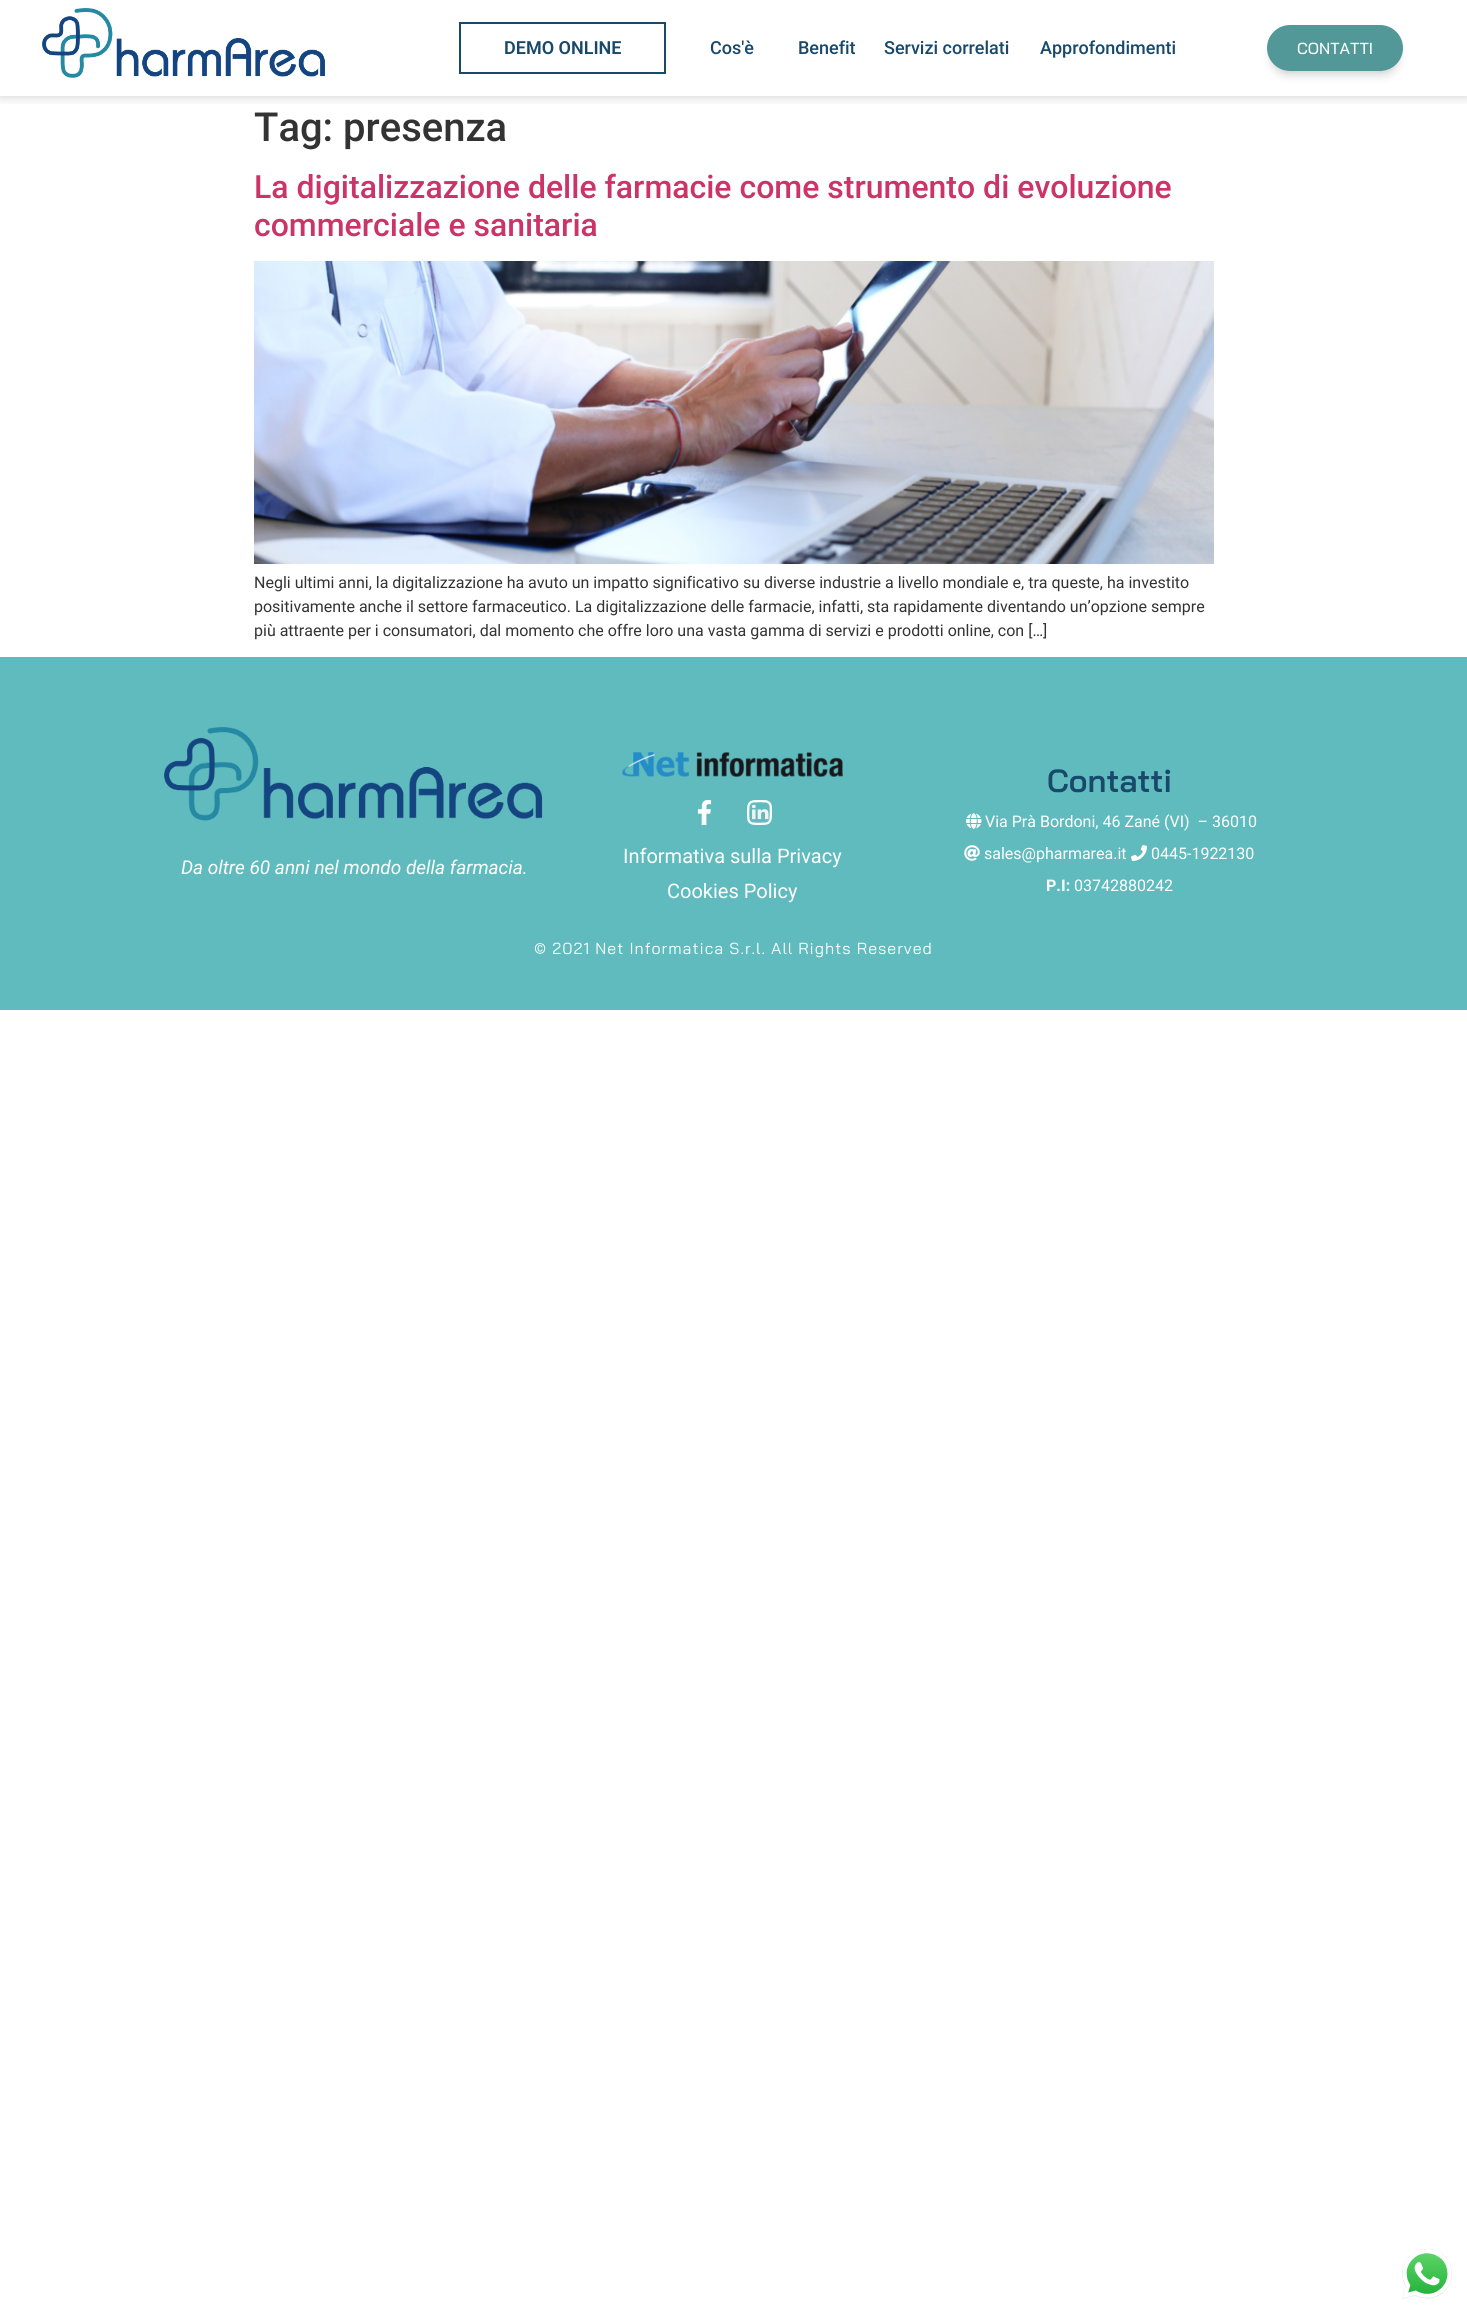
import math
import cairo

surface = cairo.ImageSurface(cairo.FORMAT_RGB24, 1467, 2314)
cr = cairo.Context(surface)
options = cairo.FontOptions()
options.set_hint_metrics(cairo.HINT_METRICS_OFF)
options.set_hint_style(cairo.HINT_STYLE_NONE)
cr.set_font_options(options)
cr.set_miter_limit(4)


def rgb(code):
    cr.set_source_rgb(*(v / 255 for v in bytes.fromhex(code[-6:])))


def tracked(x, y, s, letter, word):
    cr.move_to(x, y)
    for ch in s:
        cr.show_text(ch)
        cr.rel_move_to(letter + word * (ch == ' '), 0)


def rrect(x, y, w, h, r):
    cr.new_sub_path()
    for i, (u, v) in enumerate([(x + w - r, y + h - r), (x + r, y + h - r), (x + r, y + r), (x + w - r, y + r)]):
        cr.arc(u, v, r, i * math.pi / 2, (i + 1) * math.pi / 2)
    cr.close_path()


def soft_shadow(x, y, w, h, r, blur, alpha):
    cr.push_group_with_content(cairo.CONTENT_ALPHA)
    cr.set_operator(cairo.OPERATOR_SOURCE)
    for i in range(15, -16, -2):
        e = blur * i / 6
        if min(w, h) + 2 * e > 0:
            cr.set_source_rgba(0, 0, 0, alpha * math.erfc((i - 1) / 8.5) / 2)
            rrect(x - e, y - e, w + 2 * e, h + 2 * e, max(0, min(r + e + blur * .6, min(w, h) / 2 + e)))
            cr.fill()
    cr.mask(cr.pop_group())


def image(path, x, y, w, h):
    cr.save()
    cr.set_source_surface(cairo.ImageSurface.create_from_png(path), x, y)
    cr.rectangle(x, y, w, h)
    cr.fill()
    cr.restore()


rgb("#ffffff")
cr.paint()
cr.save()
cr.rectangle(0, 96, 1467, 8)
cr.clip()
rgb("#000000")
soft_shadow(0, 2, 1467, 96, 0, 5, 0.15)
cr.restore()
image("img/1.png", 42, 8, 283, 70)
cr.rectangle(460, 23, 205, 50)
rgb("#18486a")
cr.stroke()
cr.save()
cr.set_fill_rule(cairo.FILL_RULE_EVEN_ODD)
cr.new_path()
cr.move_to(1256, 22)
cr.line_to(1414, 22)
cr.line_to(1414, 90)
cr.line_to(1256, 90)
cr.close_path()
cr.move_to(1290, 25)
cr.line_to(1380, 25)
cr.curve_to(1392.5, 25, 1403, 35.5, 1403, 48)
cr.curve_to(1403, 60.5, 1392.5, 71, 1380, 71)
cr.line_to(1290, 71)
cr.curve_to(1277.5, 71, 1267, 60.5, 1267, 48)
cr.curve_to(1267, 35.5, 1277.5, 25, 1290, 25)
cr.close_path()
cr.clip()
rgb("#000000")
soft_shadow(1272, 38, 126, 36, 18, 5, 0.2)
cr.restore()
cr.set_source_rgba(0.176, 0.506, 0.514, 0.82)
rrect(1267, 25, 136, 46, 23)
cr.fill()
image("img/2.png", 254, 261, 960, 303)
rgb("#5fbbbe")
cr.rectangle(0, 657, 1467, 353)
cr.fill()
image("img/3.png", 164, 727, 379, 94)
image("img/4.png", 622, 752, 221, 25)
image("img/5.png", 697, 800, 15, 25)
image("img/6.png", 747, 800, 25, 25)
image("img/7.png", 966, 813, 16, 16)
image("img/8.png", 964, 845, 16, 16)
image("img/9.png", 1131, 845, 16, 16)
image("img/10.png", 1402, 2249, 50, 50)
cr.select_font_face("Roboto SemiBold")
cr.set_font_size(18)
rgb("#18486a")
cr.move_to(504, 54)
cr.show_text("DEMO ONLINE")
cr.select_font_face("Roboto Medium")
for x, y, s in [
    (710, 54, "Cos'è"),
    (798, 54, "Benefit"),
    (884, 54, "Servizi correlati"),
    (1040, 54, "Approfondimenti"),
]:
    cr.move_to(x, y)
    cr.show_text(s)
cr.select_font_face("Bai Jamjuree Medium")
cr.set_font_size(16)
rgb("#ffffff")
cr.move_to(1297, 54)
cr.show_text("CONTATTI")
cr.select_font_face("Roboto Medium")
cr.set_font_size(40)
rgb("#333333")
cr.move_to(254, 141)
cr.show_text("Tag: presenza")
cr.set_font_size(32)
rgb("#cc3366")
cr.move_to(254, 198)
cr.show_text("La digitalizzazione delle farmacie come strumento di evoluzione")
cr.move_to(254, 236)
cr.show_text("commerciale e sanitaria")
cr.select_font_face("Roboto")
cr.set_font_size(16)
rgb("#333333")
for x, y, s in [
    (254, 588, "Negli ultimi anni, la digitalizzazione ha avuto un impatto significativo su diverse industrie a livello mondiale e, tra queste, ha investito"),
    (254, 612, "positivamente anche il settore farmaceutico. La digitalizzazione delle farmacie, infatti, sta rapidamente diventando un’opzione sempre"),
    (254, 636, "più attraente per i consumatori, dal momento che offre loro una vasta gamma di servizi e prodotti online, con […]"),
]:
    cr.move_to(x, y)
    cr.show_text(s)
cr.select_font_face("Roboto", cairo.FONT_SLANT_ITALIC)
cr.set_font_size(19)
rgb("#ffffff")
cr.move_to(181, 874)
cr.show_text("Da oltre 60 anni nel mondo della farmacia.")
cr.select_font_face("Roboto")
cr.set_font_size(20)
cr.move_to(623, 863)
cr.show_text("Informativa sulla Privacy")
cr.move_to(667, 898)
cr.show_text("Cookies Policy")
cr.select_font_face("Bai Jamjuree SemiBold")
cr.set_font_size(32)
rgb("#18486a")
cr.move_to(1047, 792)
cr.show_text("Contatti")
cr.select_font_face("Roboto")
cr.set_font_size(16)
rgb("#ffffff")
for x, y, s in [
    (985, 827, "Via Prà Bordoni, 46 Zané (VI)  – 36010"),
    (984, 859, "sales@pharmarea.it"),
    (1151, 859, "0445-1922130"),
]:
    cr.move_to(x, y)
    cr.show_text(s)
cr.select_font_face("Roboto", cairo.FONT_SLANT_NORMAL, cairo.FONT_WEIGHT_BOLD)
cr.move_to(1046, 891)
cr.show_text("P.I:")
cr.select_font_face("Roboto")
cr.move_to(1074, 891)
cr.show_text("03742880242")
cr.select_font_face("Bai Jamjuree")
tracked(534, 954, "© 2021 Net Informatica S.r.l. All Rights Reserved", 1, 0)
surface.write_to_png("page.png")
